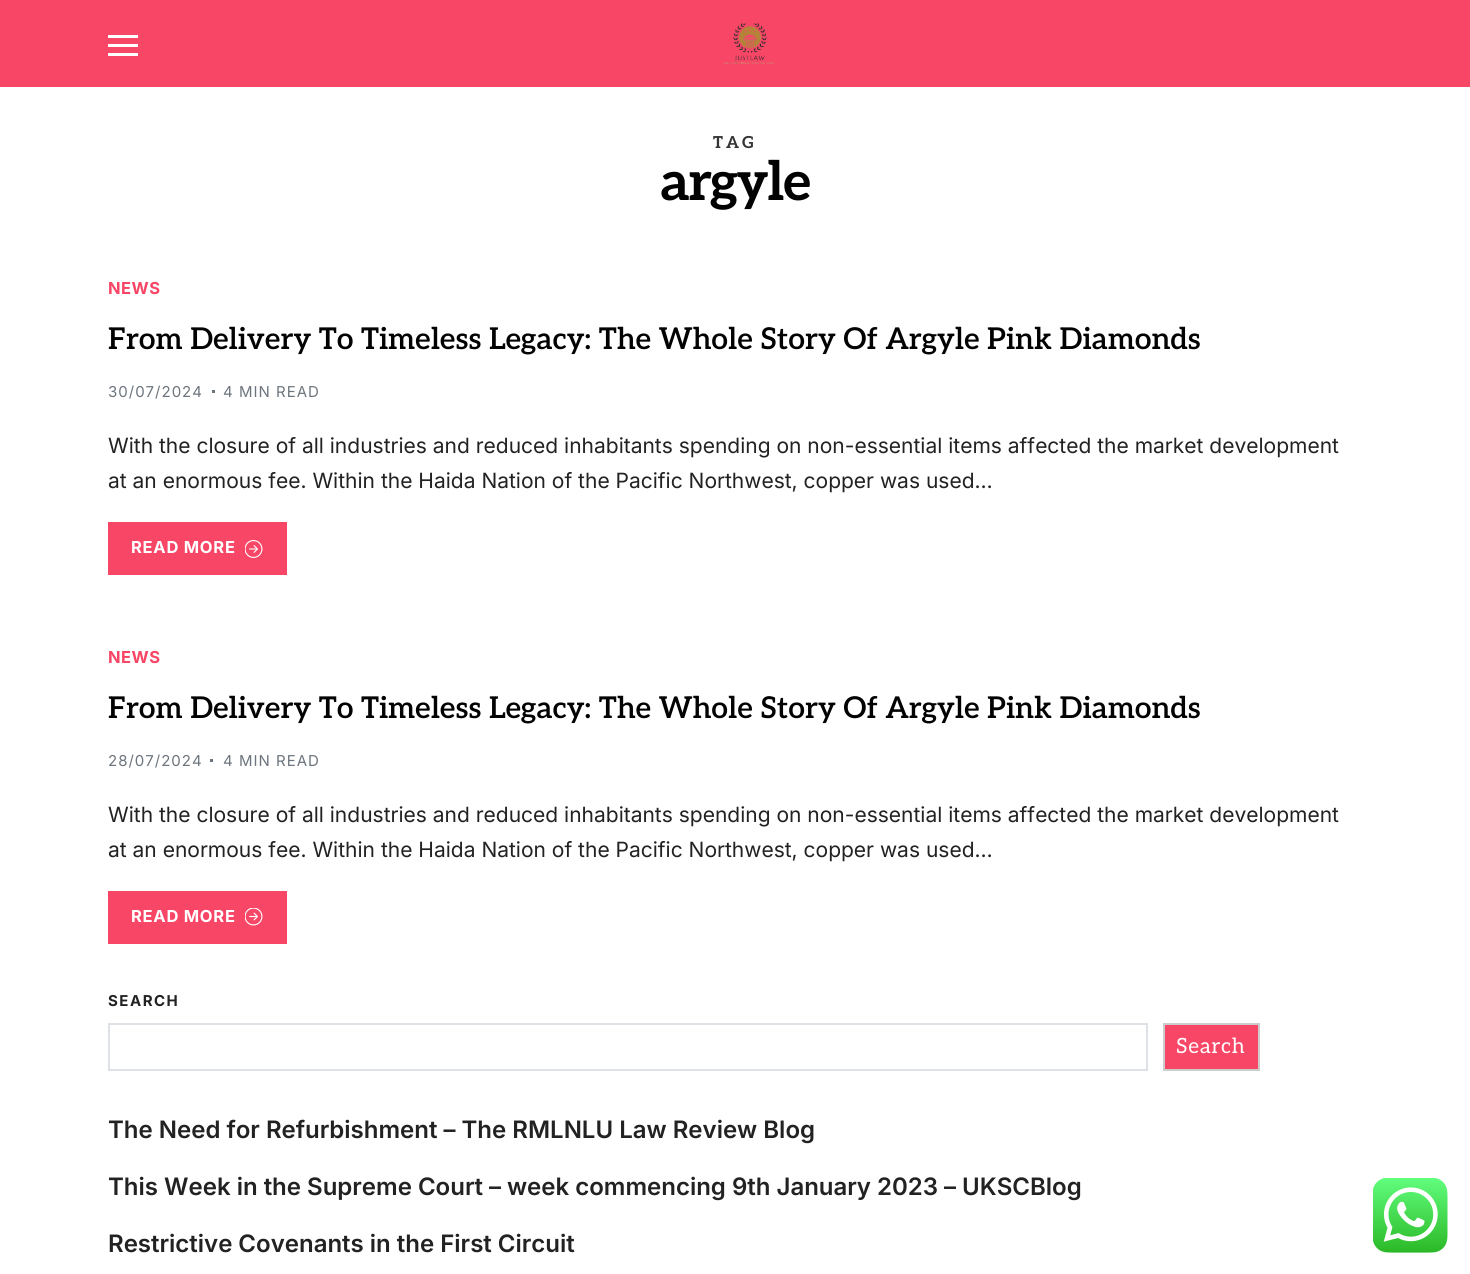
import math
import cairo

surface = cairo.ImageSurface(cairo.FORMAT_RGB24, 1470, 1274)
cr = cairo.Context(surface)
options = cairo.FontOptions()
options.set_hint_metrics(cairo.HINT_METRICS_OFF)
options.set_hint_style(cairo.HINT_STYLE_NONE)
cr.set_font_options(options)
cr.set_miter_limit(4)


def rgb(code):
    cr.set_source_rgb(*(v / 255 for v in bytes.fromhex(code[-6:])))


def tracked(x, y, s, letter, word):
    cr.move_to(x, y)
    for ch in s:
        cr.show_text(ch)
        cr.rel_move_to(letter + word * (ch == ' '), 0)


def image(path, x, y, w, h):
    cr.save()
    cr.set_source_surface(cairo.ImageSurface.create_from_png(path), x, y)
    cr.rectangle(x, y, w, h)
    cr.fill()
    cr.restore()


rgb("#ffffff")
cr.paint()
for x, y, w, h, color in [
    (0, 0, 1470, 87, "#f84666"),
    (108, 35, 30, 3, "#ffffff"),
    (108, 44, 30, 3, "#ffffff"),
    (108, 53, 30, 3, "#ffffff"),
]:
    rgb(color)
    cr.rectangle(x, y, w, h)
    cr.fill()
image("img/1.png", 724, 23, 51, 42)
rgb("#6c757d")
cr.rectangle(212, 390, 3, 3)
cr.fill()
rgb("#f84666")
cr.rectangle(108, 522, 179, 53)
cr.fill()
image("img/2.png", 245, 540, 18, 18)
rgb("#6c757d")
cr.rectangle(210, 759, 3, 3)
cr.fill()
rgb("#f84666")
cr.rectangle(108, 891, 179, 53)
cr.fill()
image("img/3.png", 245, 908, 18, 18)
cr.rectangle(109, 1024, 1038, 46)
rgb("#dee2e6")
cr.stroke()
rgb("#f84666")
cr.rectangle(1164, 1024, 95, 46)
cr.fill_preserve()
rgb("#cccccc")
cr.stroke()
image("img/4.png", 1373, 1178, 75, 75)
cr.select_font_face("Aleo", cairo.FONT_SLANT_NORMAL, cairo.FONT_WEIGHT_BOLD)
cr.set_font_size(16.5)
rgb("#353535")
tracked(713, 148, "TAG", 3, 0)
cr.set_font_size(54)
rgb("#020202")
tracked(660, 200, "argyle", -1.5, 0)
cr.select_font_face("Inter", cairo.FONT_SLANT_NORMAL, cairo.FONT_WEIGHT_BOLD)
cr.set_font_size(16.5)
rgb("#f84666")
tracked(108, 294, "NEWS", 0.5, 0)
cr.select_font_face("Aleo SemiBold")
cr.set_font_size(30)
rgb("#020202")
cr.move_to(108, 349)
cr.show_text("From Delivery To Timeless Legacy: The Whole Story Of Argyle Pink Diamonds")
cr.select_font_face("Inter")
cr.set_font_size(15)
rgb("#6c757d")
tracked(108, 397, "30/07/2024", 1, 0)
tracked(223, 397, "4 MIN READ", 1, 0)
cr.set_font_size(21)
rgb("#232222")
cr.move_to(108, 453)
cr.show_text("With the closure of all industries and reduced inhabitants spending on non-essential items affected the market development")
cr.move_to(108, 488)
cr.show_text("at an enormous fee. Within the Haida Nation of the Pacific Northwest, copper was used…")
cr.select_font_face("Inter", cairo.FONT_SLANT_NORMAL, cairo.FONT_WEIGHT_BOLD)
cr.set_font_size(16.5)
rgb("#ffffff")
tracked(131, 553, "READ MORE", 0.75, 0)
rgb("#f84666")
tracked(108, 663, "NEWS", 0.5, 0)
cr.select_font_face("Aleo SemiBold")
cr.set_font_size(30)
rgb("#020202")
cr.move_to(108, 718)
cr.show_text("From Delivery To Timeless Legacy: The Whole Story Of Argyle Pink Diamonds")
cr.select_font_face("Inter")
cr.set_font_size(15)
rgb("#6c757d")
tracked(108, 766, "28/07/2024", 1, 0)
tracked(223, 766, "4 MIN READ", 1, 0)
cr.set_font_size(21)
rgb("#232222")
cr.move_to(108, 822)
cr.show_text("With the closure of all industries and reduced inhabitants spending on non-essential items affected the market development")
cr.move_to(108, 857)
cr.show_text("at an enormous fee. Within the Haida Nation of the Pacific Northwest, copper was used…")
cr.select_font_face("Inter", cairo.FONT_SLANT_NORMAL, cairo.FONT_WEIGHT_BOLD)
cr.set_font_size(16.5)
rgb("#ffffff")
tracked(131, 922, "READ MORE", 0.75, 0)
cr.set_font_size(15)
rgb("#232222")
tracked(108, 1006, "SEARCH", 1.5, 0)
cr.select_font_face("Aleo")
cr.set_font_size(21)
rgb("#ffffff")
tracked(1176, 1053, "Search", 0.75, 0)
cr.select_font_face("Inter SemiBold")
cr.set_font_size(24)
rgb("#232222")
for x, y, s in [
    (108, 1138, "The Need for Refurbishment – The RMLNLU Law Review Blog"),
    (108, 1195, "This Week in the Supreme Court – week commencing 9th January 2023 – UKSCBlog"),
    (108, 1252, "Restrictive Covenants in the First Circuit"),
]:
    cr.move_to(x, y)
    cr.show_text(s)
surface.write_to_png("page.png")
